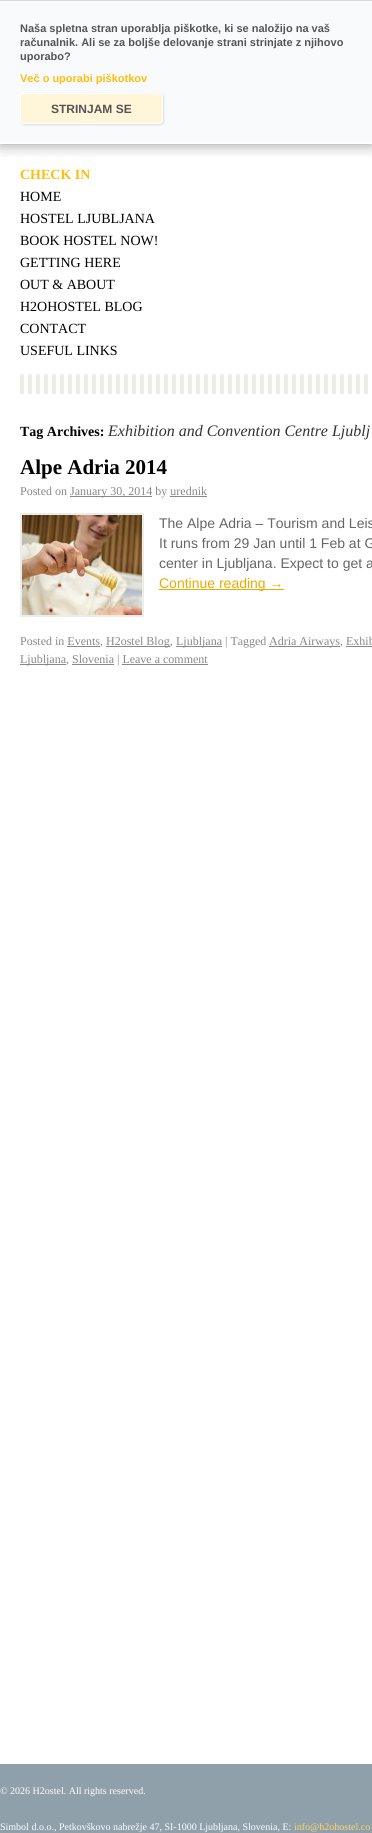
import math
import cairo

surface = cairo.ImageSurface(cairo.FORMAT_RGB24, 372, 1833)
cr = cairo.Context(surface)
options = cairo.FontOptions()
options.set_hint_metrics(cairo.HINT_METRICS_OFF)
options.set_hint_style(cairo.HINT_STYLE_NONE)
cr.set_font_options(options)
cr.set_miter_limit(4)


def rgb(code):
    cr.set_source_rgb(*(v / 255 for v in bytes.fromhex(code[-6:])))


def rrect(x, y, w, h, r):
    cr.new_sub_path()
    for i, (u, v) in enumerate([(x + w - r, y + h - r), (x + r, y + h - r), (x + r, y + r), (x + w - r, y + r)]):
        cr.arc(u, v, r, i * math.pi / 2, (i + 1) * math.pi / 2)
    cr.close_path()


def soft_shadow(x, y, w, h, r, blur, alpha):
    cr.push_group_with_content(cairo.CONTENT_ALPHA)
    cr.set_operator(cairo.OPERATOR_SOURCE)
    for i in range(15, -16, -2):
        e = blur * i / 6
        if min(w, h) + 2 * e > 0:
            cr.set_source_rgba(0, 0, 0, alpha * math.erfc((i - 1) / 8.5) / 2)
            rrect(x - e, y - e, w + 2 * e, h + 2 * e, max(0, min(r + e + blur * .6, min(w, h) / 2 + e)))
            cr.fill()
    cr.mask(cr.pop_group())


def image(path, x, y, w, h):
    cr.save()
    cr.set_source_surface(cairo.ImageSurface.create_from_png(path), x, y)
    cr.rectangle(x, y, w, h)
    cr.fill()
    cr.restore()


rgb("#90a0aa")
cr.paint()
rgb("#f9fafb")
cr.rectangle(0, 1, 372, 141)
cr.fill()
rgb("#ffffff")
cr.rectangle(0, 142, 372, 1622)
cr.fill()
cr.save()
cr.rectangle(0, 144, 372, 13)
cr.clip()
rgb("#000000")
soft_shadow(0, 0, 372, 144, 0, 7.5, 0.43)
cr.restore()
rgb("#d9d9d9")
cr.rectangle(0, 0, 372, 1)
cr.fill()
rgb("#000000")
soft_shadow(21, 94, 143, 31, 4, 1, 0.11)
rgb("#fff5d9")
rrect(20.5, 93.5, 142, 30, 3.5)
cr.fill_preserve()
rgb("#ffffff")
cr.set_line_width(1)
cr.stroke()
image("img/1.png", 20, 374, 348, 20)
rgb("#888888")
cr.rectangle(70, 496, 82, 1)
cr.fill()
cr.rectangle(170, 496, 37, 1)
cr.fill()
cr.rectangle(21, 514, 122, 102)
rgb("#ecede9")
cr.set_line_width(2)
cr.stroke()
image("img/2.png", 22, 515, 120, 100)
for x, y, w, h, color in [
    (159, 589, 125, 1, "#eaab00"),
    (67, 646, 33, 1, "#888888"),
    (106, 646, 64, 1, "#888888"),
    (176, 646, 46, 1, "#888888"),
    (269, 646, 71, 1, "#888888"),
    (346, 646, 26, 1, "#888888"),
    (20, 664, 46, 1, "#888888"),
    (72, 664, 42, 1, "#888888"),
    (122, 664, 86, 1, "#888888"),
]:
    rgb(color)
    cr.rectangle(x, y, w, h)
    cr.fill()
cr.select_font_face("Liberation Sans", cairo.FONT_SLANT_NORMAL, cairo.FONT_WEIGHT_BOLD)
cr.set_font_size(11)
rgb("#555555")
for x, y, s in [
    (20, 32, "Naša spletna stran uporablja piškotke, ki se naložijo na vaš"),
    (20, 46, "računalnik. Ali se za boljše delovanje strani strinjate z njihovo"),
    (20, 60, "uporabo?"),
]:
    cr.move_to(x, y)
    cr.show_text(s)
rgb("#febe10")
cr.move_to(20, 82)
cr.show_text("Več o uporabi piškotkov")
cr.set_font_size(12)
rgb("#555555")
cr.move_to(51, 113)
cr.show_text("STRINJAM SE")
cr.select_font_face("Liberation Serif", cairo.FONT_SLANT_NORMAL, cairo.FONT_WEIGHT_BOLD)
cr.set_font_size(14)
rgb("#febe10")
cr.move_to(20, 179)
cr.show_text("CHECK IN")
cr.select_font_face("Liberation Serif")
rgb("#000000")
for x, y, s in [
    (20, 201, "HOME"),
    (20, 223, "HOSTEL LJUBLJANA"),
    (20, 245, "BOOK HOSTEL NOW!"),
    (20, 267, "GETTING HERE"),
    (20, 289, "OUT & ABOUT"),
    (20, 311, "H2OHOSTEL BLOG"),
    (20, 333, "CONTACT"),
    (20, 355, "USEFUL LINKS"),
]:
    cr.move_to(x, y)
    cr.show_text(s)
cr.select_font_face("Liberation Serif", cairo.FONT_SLANT_NORMAL, cairo.FONT_WEIGHT_BOLD)
cr.move_to(20, 436)
cr.show_text("Tag Archives:")
cr.select_font_face("Liberation Serif", cairo.FONT_SLANT_ITALIC)
cr.set_font_size(16)
rgb("#333333")
cr.move_to(108, 436)
cr.show_text("Exhibition and Convention Centre Ljublj")
cr.select_font_face("Liberation Serif", cairo.FONT_SLANT_NORMAL, cairo.FONT_WEIGHT_BOLD)
cr.set_font_size(21)
rgb("#000000")
cr.move_to(20, 474)
cr.show_text("Alpe Adria 2014")
cr.select_font_face("Liberation Serif")
cr.set_font_size(12)
rgb("#888888")
cr.move_to(20, 495)
cr.show_text("Posted on")
cr.move_to(70, 495)
cr.show_text("January 30, 2014 by urednik")
cr.select_font_face("Liberation Sans")
cr.set_font_size(14)
rgb("#666666")
for x, y, s in [
    (159, 528, "The Alpe Adria – Tourism and Leis"),
    (159, 548, "It runs from 29 Jan until 1 Feb at G"),
    (159, 568, "center in Ljubljana. Expect to get a"),
]:
    cr.move_to(x, y)
    cr.show_text(s)
rgb("#eaab00")
cr.move_to(159, 588)
cr.show_text("Continue reading →")
cr.select_font_face("Liberation Serif")
cr.set_font_size(12)
rgb("#888888")
for x, y, s in [
    (20, 645, "Posted in Events,"),
    (106, 645, "H2ostel Blog,"),
    (176, 645, "Ljubljana | Tagged"),
    (269, 645, "Adria Airways, Exhib"),
    (20, 663, "Ljubljana, Slovenia | Leave a comment"),
]:
    cr.move_to(x, y)
    cr.show_text(s)
cr.set_font_size(10)
rgb("#ffffff")
cr.move_to(0, 1794)
cr.show_text("© 2026 H2ostel. All rights reserved.")
cr.move_to(0, 1830)
cr.show_text("Simbol d.o.o., Petkovškovo nabrežje 47, SI-1000 Ljubljana, Slovenia, E:")
rgb("#ffd76a")
cr.move_to(294, 1830)
cr.show_text("info@h2ohostel.co")
surface.write_to_png("page.png")
